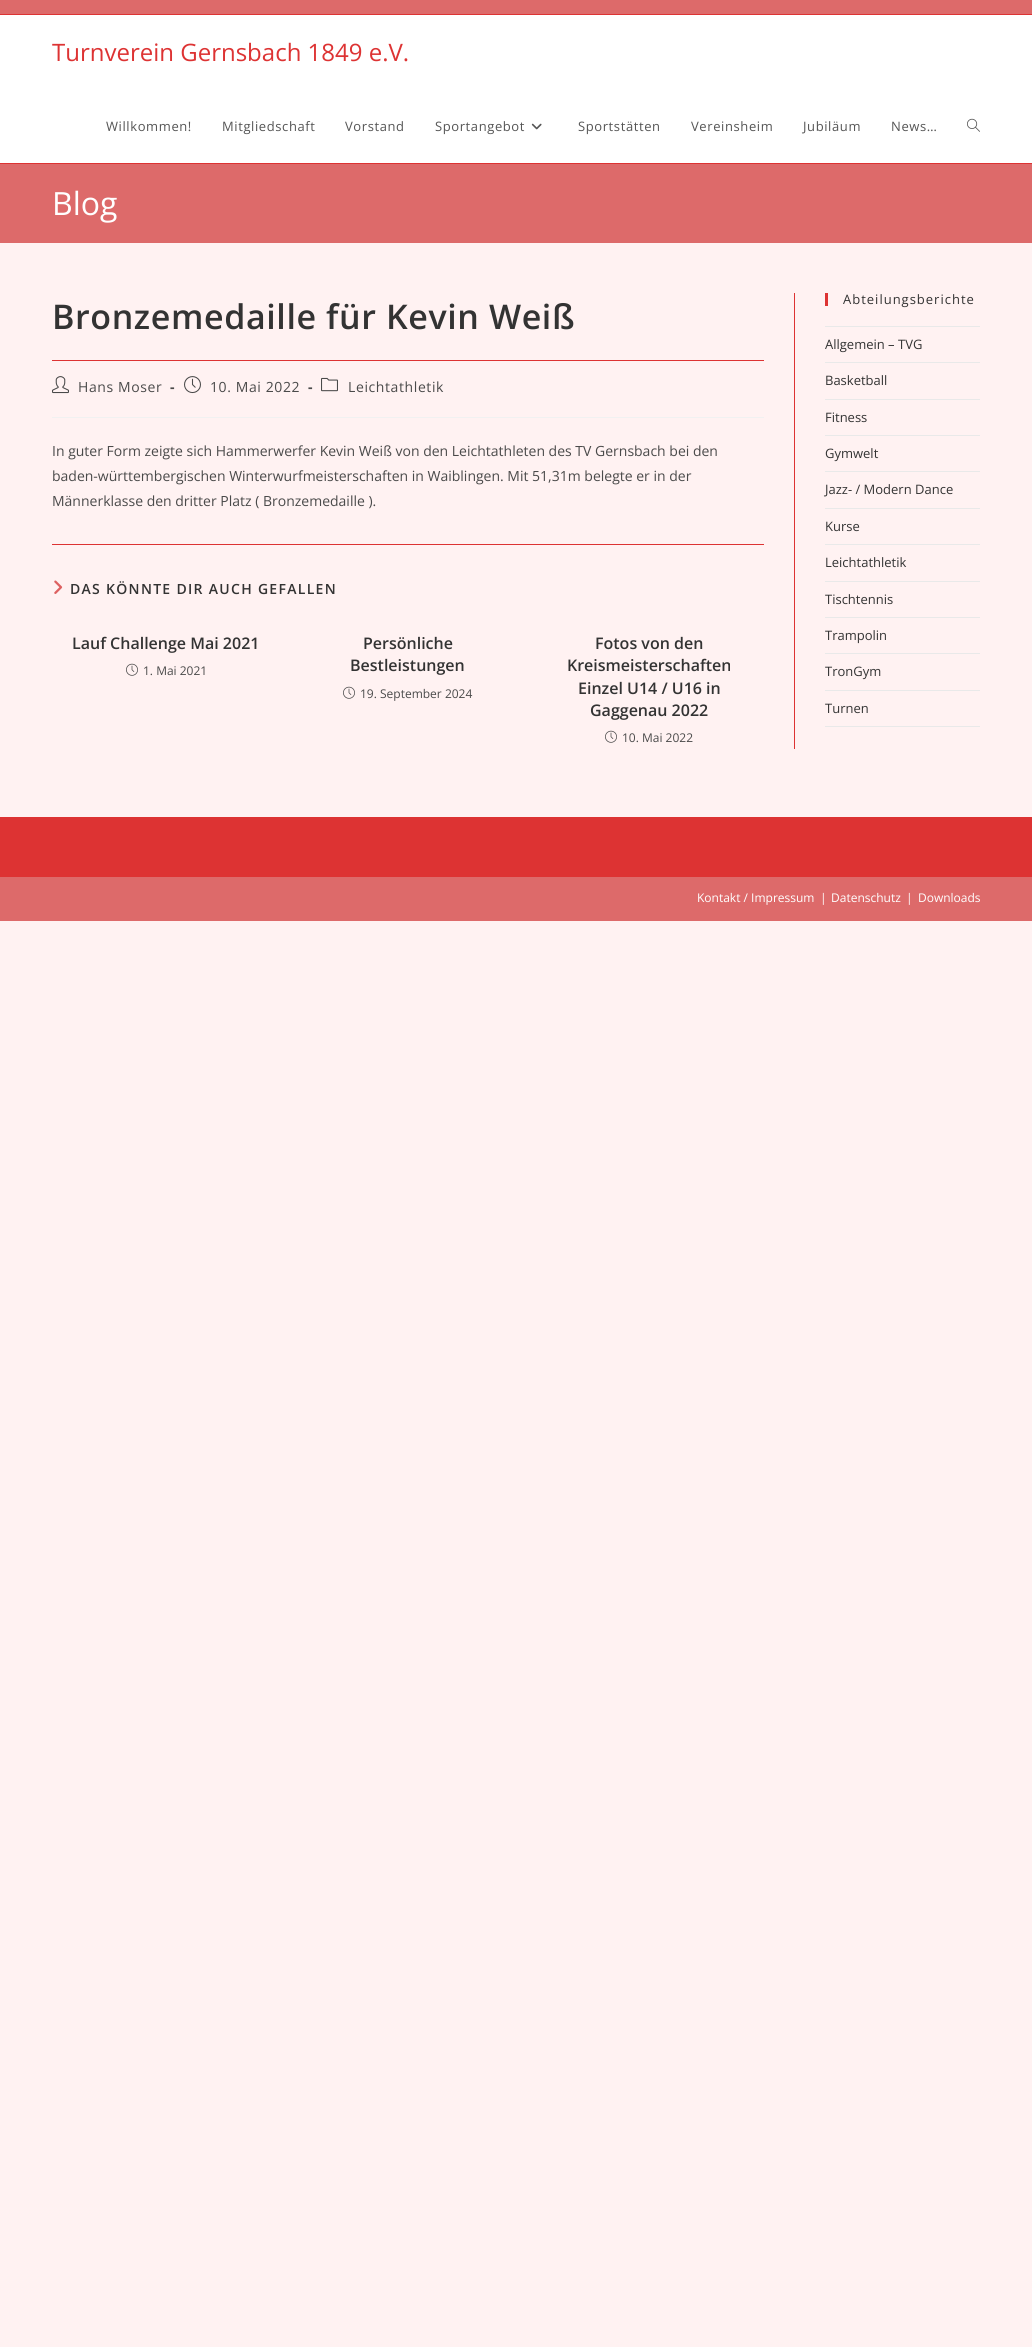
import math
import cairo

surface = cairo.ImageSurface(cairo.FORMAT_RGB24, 1032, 2347)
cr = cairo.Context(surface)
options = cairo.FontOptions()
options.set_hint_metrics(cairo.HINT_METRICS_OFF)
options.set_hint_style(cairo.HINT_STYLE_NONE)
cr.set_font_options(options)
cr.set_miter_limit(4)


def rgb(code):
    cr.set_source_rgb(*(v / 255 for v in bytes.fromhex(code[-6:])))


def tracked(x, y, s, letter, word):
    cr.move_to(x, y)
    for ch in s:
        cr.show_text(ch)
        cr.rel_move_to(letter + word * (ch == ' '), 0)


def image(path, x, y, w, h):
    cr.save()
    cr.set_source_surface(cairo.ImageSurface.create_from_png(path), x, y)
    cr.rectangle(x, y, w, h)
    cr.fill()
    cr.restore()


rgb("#fff2f2")
cr.paint()
for x, y, w, h, color in [
    (0, 0, 1032, 14, "#dd6a6a"),
    (0, 14, 1032, 1, "#dd3333"),
    (0, 15, 1032, 148, "#ffffff"),
    (0, 163, 1032, 1, "#dd3333"),
]:
    rgb(color)
    cr.rectangle(x, y, w, h)
    cr.fill()
image("img/1.png", 531, 123, 11, 7)
image("img/2.png", 967, 118, 13, 14)
for x, y, w, h, color in [
    (0, 164, 1032, 79, "#dd6a6a"),
    (794, 293, 1, 456, "#dd3333"),
    (52, 360, 712, 1, "#dd3333"),
    (52, 417, 712, 1, "#f1f1f1"),
]:
    rgb(color)
    cr.rectangle(x, y, w, h)
    cr.fill()
image("img/3.png", 52, 376, 17, 18)
image("img/4.png", 184, 376, 17, 18)
image("img/5.png", 321, 377, 17, 15)
rgb("#dd3333")
cr.rectangle(52, 544, 712, 1)
cr.fill()
image("img/6.png", 54, 580, 9, 14)
image("img/7.png", 126, 663, 12, 13)
image("img/7.png", 343, 686, 12, 13)
image("img/7.png", 605, 730, 12, 13)
for x, y, w, h, color in [
    (825, 293, 3, 13, "#dd3333"),
    (825, 326, 155, 1, "#e9e9e9"),
    (825, 362, 155, 1, "#e9e9e9"),
    (825, 399, 155, 1, "#e9e9e9"),
    (825, 435, 155, 1, "#e9e9e9"),
    (825, 471, 155, 1, "#e9e9e9"),
    (825, 508, 155, 1, "#e9e9e9"),
    (825, 544, 155, 1, "#e9e9e9"),
    (825, 581, 155, 1, "#e9e9e9"),
    (825, 617, 155, 1, "#e9e9e9"),
    (825, 653, 155, 1, "#e9e9e9"),
    (825, 690, 155, 1, "#e9e9e9"),
    (825, 726, 155, 1, "#e9e9e9"),
    (0, 817, 1032, 60, "#dd3333"),
    (0, 877, 1032, 44, "#dd6a6a"),
]:
    rgb(color)
    cr.rectangle(x, y, w, h)
    cr.fill()
cr.select_font_face("Open Sans")
cr.set_font_size(24)
rgb("#dd3333")
cr.move_to(52, 61)
cr.show_text("Turnverein Gernsbach 1849 e.V.")
cr.set_font_size(13)
rgb("#555555")
for x, y, s in [
    (106, 131, "Willkommen!"),
    (222, 131, "Mitgliedschaft"),
    (345, 131, "Vorstand"),
    (435, 131, "Sportangebot"),
    (578, 131, "Sportstätten"),
    (691, 131, "Vereinsheim"),
    (803, 131, "Jubiläum"),
    (891, 131, "News…"),
]:
    tracked(x, y, s, 0.6, 0)
cr.set_font_size(32)
rgb("#ffffff")
cr.move_to(52, 215)
cr.show_text("Blog")
cr.select_font_face("Open Sans SemiBold")
cr.set_font_size(34)
rgb("#333333")
tracked(52, 329, "Bronzemedaille für Kevin Weiß", 0.6, 0)
cr.select_font_face("Open Sans")
cr.set_font_size(14)
rgb("#4a4a4a")
tracked(78, 392, "Hans Moser", 0.6, 0)
cr.select_font_face("Open Sans", cairo.FONT_SLANT_NORMAL, cairo.FONT_WEIGHT_BOLD)
tracked(170, 392, "-", 0.6, 0)
cr.select_font_face("Open Sans")
tracked(210, 392, "10. Mai 2022", 0.6, 0)
cr.select_font_face("Open Sans", cairo.FONT_SLANT_NORMAL, cairo.FONT_WEIGHT_BOLD)
tracked(308, 392, "-", 0.6, 0)
cr.select_font_face("Open Sans")
tracked(348, 392, "Leichtathletik", 0.6, 0)
for x, y, s in [
    (52, 456, "In guter Form zeigte sich Hammerwerfer Kevin Weiß von den Leichtathleten des TV Gernsbach bei den"),
    (52, 481, "baden-württembergischen Winterwurfmeisterschaften in Waiblingen. Mit 51,31m belegte er in der"),
    (52, 506, "Männerklasse den dritter Platz ( Bronzemedaille )."),
]:
    cr.move_to(x, y)
    cr.show_text(s)
cr.select_font_face("Open Sans SemiBold")
rgb("#333333")
tracked(70, 594, "DAS KÖNNTE DIR AUCH GEFALLEN", 1.3, 0)
cr.set_font_size(16)
cr.move_to(72, 649)
cr.show_text("Lauf Challenge Mai 2021")
cr.select_font_face("Open Sans")
cr.set_font_size(12)
rgb("#4a4a4a")
cr.move_to(143, 675)
cr.show_text("1. Mai 2021")
cr.select_font_face("Open Sans SemiBold")
cr.set_font_size(16)
rgb("#333333")
cr.move_to(363, 649)
cr.show_text("Persönliche")
cr.move_to(350, 671)
cr.show_text("Bestleistungen")
cr.select_font_face("Open Sans")
cr.set_font_size(12)
rgb("#4a4a4a")
cr.move_to(360, 698)
cr.show_text("19. September 2024")
cr.select_font_face("Open Sans SemiBold")
cr.set_font_size(16)
rgb("#333333")
for x, y, s in [
    (595, 649, "Fotos von den"),
    (567, 671, "Kreismeisterschaften"),
    (578, 694, "Einzel U14 / U16 in"),
    (590, 716, "Gaggenau 2022"),
]:
    cr.move_to(x, y)
    cr.show_text(s)
cr.select_font_face("Open Sans")
cr.set_font_size(12)
rgb("#4a4a4a")
cr.move_to(622, 742)
cr.show_text("10. Mai 2022")
cr.set_font_size(13)
rgb("#333333")
tracked(843, 304, "Abteilungsberichte", 1, 0)
for x, y, s in [
    (825, 349, "Allgemein – TVG"),
    (825, 385, "Basketball"),
    (825, 422, "Fitness"),
    (825, 458, "Gymwelt"),
    (825, 494, "Jazz- / Modern Dance"),
    (825, 531, "Kurse"),
    (825, 567, "Leichtathletik"),
    (825, 604, "Tischtennis"),
    (825, 640, "Trampolin"),
    (825, 676, "TronGym"),
    (825, 713, "Turnen"),
]:
    cr.move_to(x, y)
    cr.show_text(s)
cr.set_font_size(12)
rgb("#ffffff")
for x, y, s in [
    (697, 902, "Kontakt / Impressum"),
    (820, 902, "|"),
    (831, 902, "Datenschutz"),
    (906, 902, "|"),
    (918, 902, "Downloads"),
]:
    cr.move_to(x, y)
    cr.show_text(s)
surface.write_to_png("page.png")
